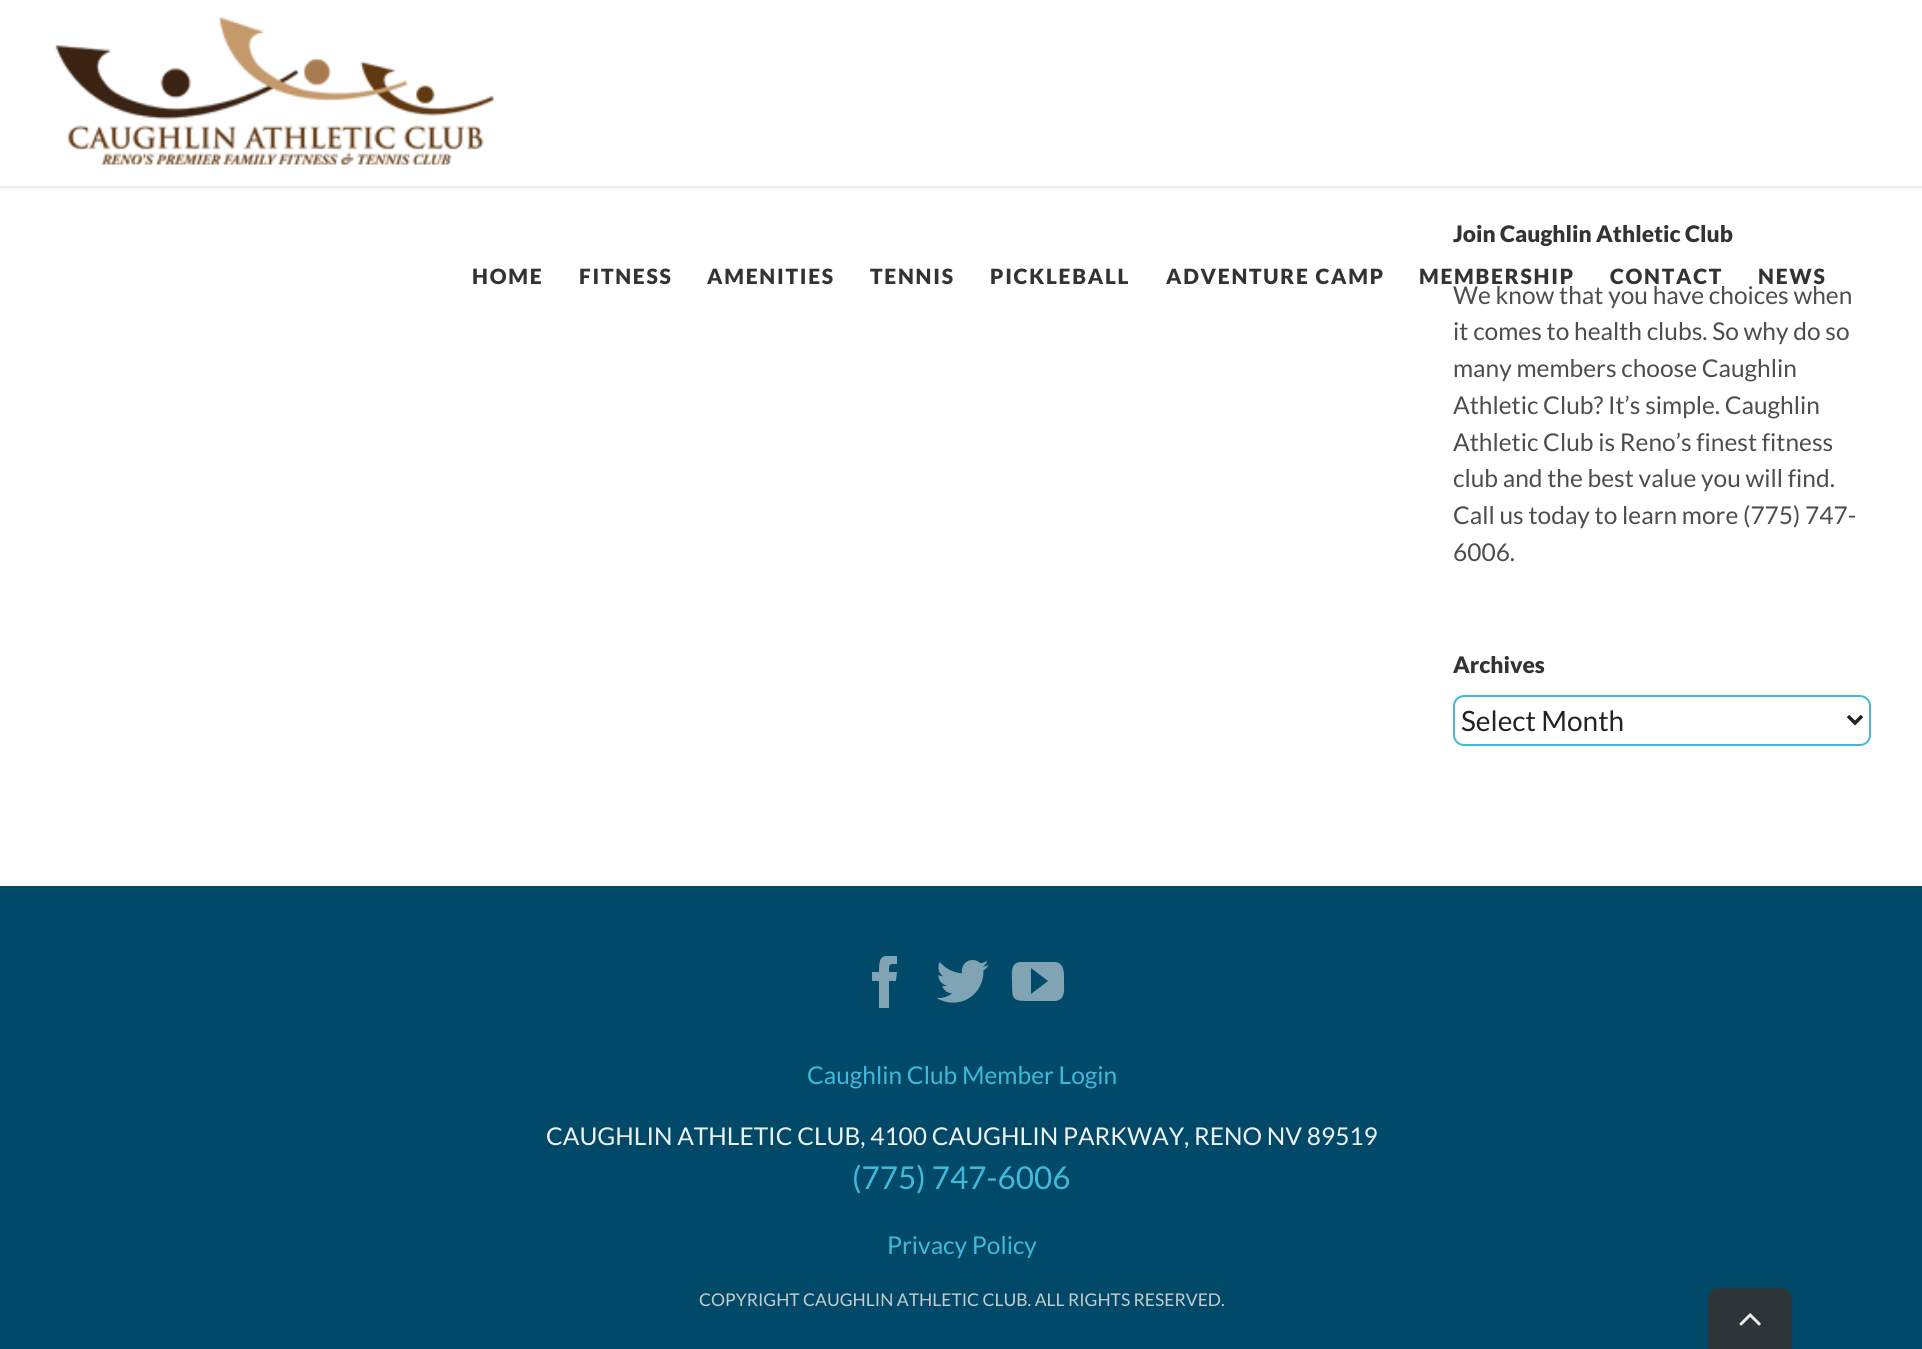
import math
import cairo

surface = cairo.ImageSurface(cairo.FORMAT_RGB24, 1922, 1349)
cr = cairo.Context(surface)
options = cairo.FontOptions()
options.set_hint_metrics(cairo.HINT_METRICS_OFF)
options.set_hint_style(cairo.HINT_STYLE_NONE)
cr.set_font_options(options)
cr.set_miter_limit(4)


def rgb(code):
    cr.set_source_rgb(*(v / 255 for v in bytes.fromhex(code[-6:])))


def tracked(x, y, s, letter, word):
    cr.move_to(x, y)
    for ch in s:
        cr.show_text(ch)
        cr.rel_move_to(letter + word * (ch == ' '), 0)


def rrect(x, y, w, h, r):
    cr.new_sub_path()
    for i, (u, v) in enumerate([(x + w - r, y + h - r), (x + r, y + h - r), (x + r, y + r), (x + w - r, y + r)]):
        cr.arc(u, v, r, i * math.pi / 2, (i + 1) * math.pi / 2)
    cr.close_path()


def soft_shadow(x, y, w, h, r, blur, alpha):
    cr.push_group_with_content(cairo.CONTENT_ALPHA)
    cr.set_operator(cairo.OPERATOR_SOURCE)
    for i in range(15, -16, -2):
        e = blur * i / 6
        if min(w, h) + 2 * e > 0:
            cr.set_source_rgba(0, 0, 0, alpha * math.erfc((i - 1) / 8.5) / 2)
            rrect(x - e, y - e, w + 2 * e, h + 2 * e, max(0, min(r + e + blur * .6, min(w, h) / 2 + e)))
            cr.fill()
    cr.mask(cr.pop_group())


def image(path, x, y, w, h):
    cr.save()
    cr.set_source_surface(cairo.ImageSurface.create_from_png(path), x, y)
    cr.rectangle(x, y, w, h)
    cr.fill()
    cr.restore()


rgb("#ffffff")
cr.paint()
rrect(1454, 696, 416, 49, 10)
rgb("#41b9db")
cr.stroke()
cr.new_path()
cr.move_to(1848, 716)
cr.line_to(1855, 723)
cr.line_to(1862, 716)
rgb("#232323")
cr.set_line_width(3.5)
cr.stroke()
rgb("#000000")
soft_shadow(0, 2, 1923, 185, 0, 2.5, 0.12)
rgb("#ffffff")
cr.rectangle(0, 0, 1922, 186)
cr.fill()
image("img/1.png", 55, 17, 439, 148)
rgb("#004968")
cr.rectangle(0, 886, 1922, 463)
cr.fill()
cr.save()
cr.rectangle(53, 956, 1818, 77)
cr.clip()
rgb("#80a4b4")
cr.new_path()
cr.move_to(889, 1008)
cr.line_to(879, 1008)
cr.line_to(879, 981)
cr.line_to(872, 981)
cr.line_to(872, 972)
cr.line_to(879, 972)
cr.curve_to(879, 956, 881, 955, 897, 955)
cr.line_to(897, 964)
cr.curve_to(888, 964, 889, 964, 889, 972)
cr.line_to(897, 972)
cr.line_to(896, 981)
cr.line_to(889, 981)
cr.close_path()
cr.fill()
cr.restore()
image("img/2.png", 936, 960, 53, 43)
rgb("#80a4b4")
cr.new_path()
cr.move_to(1054, 962)
cr.line_to(1020, 962)
cr.curve_to(1010, 963, 1012, 974, 1012, 981)
cr.curve_to(1012, 1001, 1012, 1001, 1032, 1001)
cr.line_to(1055, 1001)
cr.curve_to(1066, 1000, 1064, 989, 1064, 981)
cr.curve_to(1064, 974, 1065, 962, 1054, 962)
cr.close_path()
cr.move_to(1031, 994)
cr.line_to(1031, 968)
cr.line_to(1048, 981)
cr.close_path()
cr.fill()
rgb("#2e3538")
cr.new_path()
cr.move_to(1719, 1288)
cr.line_to(1781, 1288)
cr.curve_to(1787, 1288, 1792, 1293, 1792, 1299)
cr.line_to(1792, 1349)
cr.line_to(1708, 1349)
cr.line_to(1708, 1299)
cr.curve_to(1708, 1293, 1713, 1288, 1719, 1288)
cr.close_path()
cr.fill()
image("img/3.png", 1739, 1313, 22, 13)
cr.select_font_face("Lato Black")
cr.set_font_size(22.75)
rgb("#333333")
cr.move_to(1453, 242)
cr.show_text("Join Caughlin Athletic Club")
cr.select_font_face("Lato")
cr.set_font_size(24.5)
rgb("#4c4d4f")
for x, y, s in [
    (1453, 304, "We know that you have choices when"),
    (1453, 340, "it comes to health clubs. So why do so"),
    (1453, 377, "many members choose Caughlin"),
    (1453, 414, "Athletic Club? It’s simple. Caughlin"),
    (1453, 451, "Athletic Club is Reno’s finest fitness"),
    (1453, 487, "club and the best value you will find."),
    (1453, 524, "Call us today to learn more (775) 747-"),
    (1453, 561, "6006."),
]:
    cr.move_to(x, y)
    cr.show_text(s)
cr.select_font_face("Lato Black")
cr.set_font_size(22.75)
rgb("#333333")
cr.move_to(1453, 673)
cr.show_text("Archives")
cr.select_font_face("Lato")
cr.set_font_size(28)
rgb("#232323")
cr.move_to(1461, 731)
cr.show_text("Select Month")
cr.select_font_face("Lato Black")
cr.set_font_size(21)
rgb("#333333")
for x, y, s in [
    (472, 284, "HOME"),
    (579, 284, "FITNESS"),
    (707, 284, "AMENITIES"),
    (870, 284, "TENNIS"),
    (990, 284, "PICKLEBALL"),
    (1166, 284, "ADVENTURE CAMP"),
    (1419, 284, "MEMBERSHIP"),
    (1610, 284, "CONTACT"),
    (1758, 284, "NEWS"),
]:
    tracked(x, y, s, 1.75, 0)
cr.select_font_face("Lato")
cr.set_font_size(24.5)
rgb("#41b9db")
cr.move_to(807, 1084)
cr.show_text("Caughlin Club Member Login")
rgb("#f1f1f1")
cr.move_to(546, 1145)
cr.show_text("CAUGHLIN ATHLETIC CLUB, 4100 CAUGHLIN PARKWAY, RENO NV 89519")
cr.set_font_size(31.5)
rgb("#41b9db")
cr.move_to(852, 1189)
cr.show_text("(775) 747-6006")
cr.set_font_size(24.5)
cr.move_to(887, 1254)
cr.show_text("Privacy Policy")
cr.set_font_size(17.5)
rgb("#cacaca")
cr.move_to(699, 1306)
cr.show_text("COPYRIGHT CAUGHLIN ATHLETIC CLUB. ALL RIGHTS RESERVED.")
surface.write_to_png("page.png")
